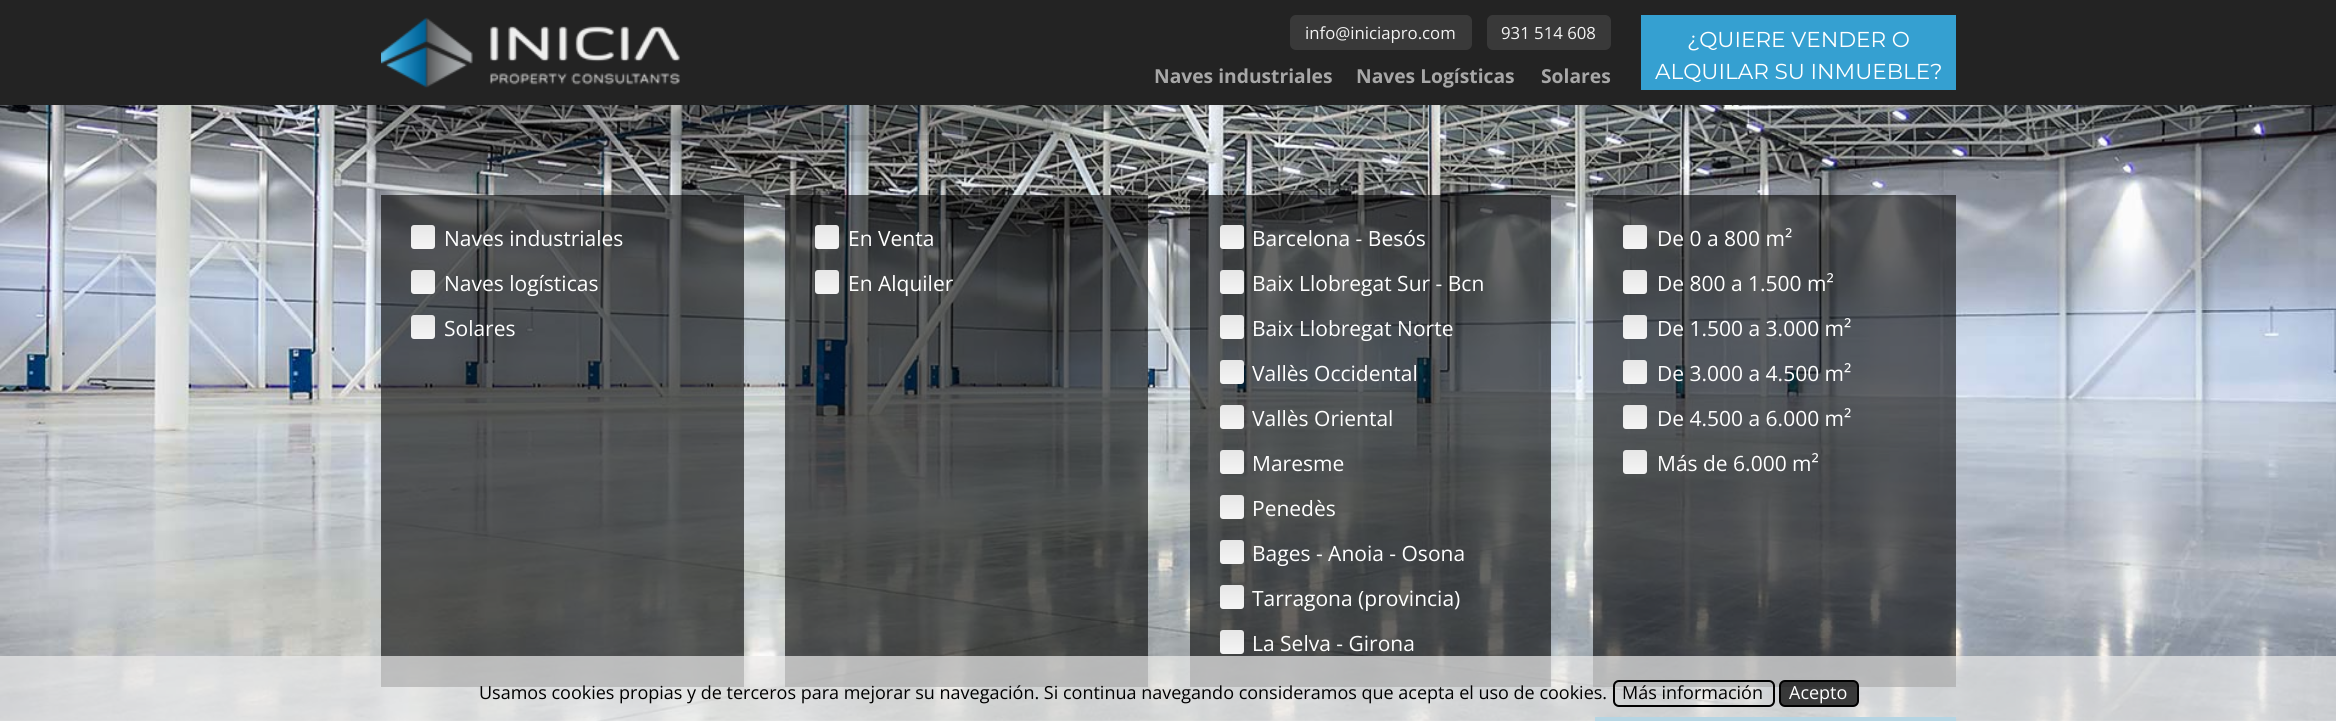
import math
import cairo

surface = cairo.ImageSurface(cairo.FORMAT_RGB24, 2336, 721)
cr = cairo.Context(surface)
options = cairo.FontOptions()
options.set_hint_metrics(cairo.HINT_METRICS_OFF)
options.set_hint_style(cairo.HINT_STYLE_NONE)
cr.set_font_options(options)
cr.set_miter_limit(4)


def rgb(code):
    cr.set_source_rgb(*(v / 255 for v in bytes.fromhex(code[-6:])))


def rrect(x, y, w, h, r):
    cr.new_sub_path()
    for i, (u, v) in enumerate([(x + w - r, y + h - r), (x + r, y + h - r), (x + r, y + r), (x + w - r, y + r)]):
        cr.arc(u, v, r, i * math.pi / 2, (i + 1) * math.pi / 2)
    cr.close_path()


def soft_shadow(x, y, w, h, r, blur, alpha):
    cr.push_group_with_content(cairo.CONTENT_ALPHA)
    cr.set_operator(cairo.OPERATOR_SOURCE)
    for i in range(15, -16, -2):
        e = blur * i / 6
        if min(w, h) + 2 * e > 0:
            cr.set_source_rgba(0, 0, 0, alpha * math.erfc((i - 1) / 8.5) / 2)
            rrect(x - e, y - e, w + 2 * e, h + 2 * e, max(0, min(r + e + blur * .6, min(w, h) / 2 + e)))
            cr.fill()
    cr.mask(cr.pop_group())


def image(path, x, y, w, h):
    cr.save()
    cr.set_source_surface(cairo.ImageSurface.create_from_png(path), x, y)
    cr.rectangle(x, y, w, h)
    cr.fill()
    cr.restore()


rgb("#ffffff")
cr.paint()
image("img/2.png", 0, 105, 2336, 616)
cr.set_source_rgba(0, 0, 0, 0.6)
cr.rectangle(381, 195, 363, 492)
cr.fill()
cr.rectangle(785, 195, 363, 492)
cr.fill()
cr.save()
cr.set_fill_rule(cairo.FILL_RULE_EVEN_ODD)
cr.new_path()
cr.move_to(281, 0)
cr.line_to(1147, 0)
cr.line_to(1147, 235)
cr.line_to(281, 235)
cr.close_path()
cr.move_to(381, 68)
cr.line_to(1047, 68)
cr.line_to(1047, 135)
cr.line_to(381, 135)
cr.close_path()
cr.clip()
rgb("#000000")
soft_shadow(381, 68, 666, 67, 0, 33, 0.72)
cr.restore()
rgb("#232323")
cr.rectangle(0, 0, 2336, 105)
cr.fill()
image("img/1.png", 381, 17, 299, 71)
rgb("#393939")
rrect(1290, 15, 182, 35, 6)
cr.fill()
rrect(1487, 15, 124, 35, 6)
cr.fill()
rgb("#35a0d1")
cr.rectangle(1641, 15, 315, 75)
cr.fill()
cr.set_source_rgba(0, 0, 0, 0.3)
cr.rectangle(381, 105, 666, 30)
cr.fill()
gradient = cairo.LinearGradient(423, 225, 423, 249)
gradient.add_color_stop_rgba(0, 0.902, 0.902, 0.902, 1)
gradient.add_color_stop_rgba(1, 0.961, 0.961, 0.961, 1)
cr.set_source(gradient)
rrect(411, 225, 24, 24, 3)
cr.fill()
gradient = cairo.LinearGradient(423, 270, 423, 294)
gradient.add_color_stop_rgba(0, 0.902, 0.902, 0.902, 1)
gradient.add_color_stop_rgba(1, 0.961, 0.961, 0.961, 1)
cr.set_source(gradient)
rrect(411, 270, 24, 24, 3)
cr.fill()
gradient = cairo.LinearGradient(423, 315, 423, 339)
gradient.add_color_stop_rgba(0, 0.902, 0.902, 0.902, 1)
gradient.add_color_stop_rgba(1, 0.961, 0.961, 0.961, 1)
cr.set_source(gradient)
rrect(411, 315, 24, 24, 3)
cr.fill()
gradient = cairo.LinearGradient(827, 225, 827, 249)
gradient.add_color_stop_rgba(0, 0.902, 0.902, 0.902, 1)
gradient.add_color_stop_rgba(1, 0.961, 0.961, 0.961, 1)
cr.set_source(gradient)
rrect(815, 225, 24, 24, 3)
cr.fill()
gradient = cairo.LinearGradient(827, 270, 827, 294)
gradient.add_color_stop_rgba(0, 0.902, 0.902, 0.902, 1)
gradient.add_color_stop_rgba(1, 0.961, 0.961, 0.961, 1)
cr.set_source(gradient)
rrect(815, 270, 24, 24, 3)
cr.fill()
cr.set_source_rgba(0, 0, 0, 0.6)
cr.rectangle(1190, 195, 361, 492)
cr.fill()
gradient = cairo.LinearGradient(1232, 225, 1232, 249)
gradient.add_color_stop_rgba(0, 0.902, 0.902, 0.902, 1)
gradient.add_color_stop_rgba(1, 0.961, 0.961, 0.961, 1)
cr.set_source(gradient)
rrect(1220, 225, 24, 24, 3)
cr.fill()
gradient = cairo.LinearGradient(1232, 270, 1232, 294)
gradient.add_color_stop_rgba(0, 0.902, 0.902, 0.902, 1)
gradient.add_color_stop_rgba(1, 0.961, 0.961, 0.961, 1)
cr.set_source(gradient)
rrect(1220, 270, 24, 24, 3)
cr.fill()
gradient = cairo.LinearGradient(1232, 315, 1232, 339)
gradient.add_color_stop_rgba(0, 0.902, 0.902, 0.902, 1)
gradient.add_color_stop_rgba(1, 0.961, 0.961, 0.961, 1)
cr.set_source(gradient)
rrect(1220, 315, 24, 24, 3)
cr.fill()
gradient = cairo.LinearGradient(1232, 360, 1232, 384)
gradient.add_color_stop_rgba(0, 0.902, 0.902, 0.902, 1)
gradient.add_color_stop_rgba(1, 0.961, 0.961, 0.961, 1)
cr.set_source(gradient)
rrect(1220, 360, 24, 24, 3)
cr.fill()
gradient = cairo.LinearGradient(1232, 405, 1232, 429)
gradient.add_color_stop_rgba(0, 0.902, 0.902, 0.902, 1)
gradient.add_color_stop_rgba(1, 0.961, 0.961, 0.961, 1)
cr.set_source(gradient)
rrect(1220, 405, 24, 24, 3)
cr.fill()
gradient = cairo.LinearGradient(1232, 450, 1232, 474)
gradient.add_color_stop_rgba(0, 0.902, 0.902, 0.902, 1)
gradient.add_color_stop_rgba(1, 0.961, 0.961, 0.961, 1)
cr.set_source(gradient)
rrect(1220, 450, 24, 24, 3)
cr.fill()
gradient = cairo.LinearGradient(1232, 495, 1232, 519)
gradient.add_color_stop_rgba(0, 0.902, 0.902, 0.902, 1)
gradient.add_color_stop_rgba(1, 0.961, 0.961, 0.961, 1)
cr.set_source(gradient)
rrect(1220, 495, 24, 24, 3)
cr.fill()
gradient = cairo.LinearGradient(1232, 540, 1232, 564)
gradient.add_color_stop_rgba(0, 0.902, 0.902, 0.902, 1)
gradient.add_color_stop_rgba(1, 0.961, 0.961, 0.961, 1)
cr.set_source(gradient)
rrect(1220, 540, 24, 24, 3)
cr.fill()
gradient = cairo.LinearGradient(1232, 585, 1232, 609)
gradient.add_color_stop_rgba(0, 0.902, 0.902, 0.902, 1)
gradient.add_color_stop_rgba(1, 0.961, 0.961, 0.961, 1)
cr.set_source(gradient)
rrect(1220, 585, 24, 24, 3)
cr.fill()
gradient = cairo.LinearGradient(1232, 630, 1232, 654)
gradient.add_color_stop_rgba(0, 0.902, 0.902, 0.902, 1)
gradient.add_color_stop_rgba(1, 0.961, 0.961, 0.961, 1)
cr.set_source(gradient)
rrect(1220, 630, 24, 24, 3)
cr.fill()
cr.set_source_rgba(0, 0, 0, 0.6)
cr.rectangle(1593, 195, 363, 492)
cr.fill()
gradient = cairo.LinearGradient(1635, 225, 1635, 249)
gradient.add_color_stop_rgba(0, 0.902, 0.902, 0.902, 1)
gradient.add_color_stop_rgba(1, 0.961, 0.961, 0.961, 1)
cr.set_source(gradient)
rrect(1623, 225, 24, 24, 3)
cr.fill()
gradient = cairo.LinearGradient(1635, 270, 1635, 294)
gradient.add_color_stop_rgba(0, 0.902, 0.902, 0.902, 1)
gradient.add_color_stop_rgba(1, 0.961, 0.961, 0.961, 1)
cr.set_source(gradient)
rrect(1623, 270, 24, 24, 3)
cr.fill()
gradient = cairo.LinearGradient(1635, 315, 1635, 339)
gradient.add_color_stop_rgba(0, 0.902, 0.902, 0.902, 1)
gradient.add_color_stop_rgba(1, 0.961, 0.961, 0.961, 1)
cr.set_source(gradient)
rrect(1623, 315, 24, 24, 3)
cr.fill()
gradient = cairo.LinearGradient(1635, 360, 1635, 384)
gradient.add_color_stop_rgba(0, 0.902, 0.902, 0.902, 1)
gradient.add_color_stop_rgba(1, 0.961, 0.961, 0.961, 1)
cr.set_source(gradient)
rrect(1623, 360, 24, 24, 3)
cr.fill()
gradient = cairo.LinearGradient(1635, 405, 1635, 429)
gradient.add_color_stop_rgba(0, 0.902, 0.902, 0.902, 1)
gradient.add_color_stop_rgba(1, 0.961, 0.961, 0.961, 1)
cr.set_source(gradient)
rrect(1623, 405, 24, 24, 3)
cr.fill()
gradient = cairo.LinearGradient(1635, 450, 1635, 474)
gradient.add_color_stop_rgba(0, 0.902, 0.902, 0.902, 1)
gradient.add_color_stop_rgba(1, 0.961, 0.961, 0.961, 1)
cr.set_source(gradient)
rrect(1623, 450, 24, 24, 3)
cr.fill()
rgb("#35a0d1")
cr.rectangle(1595, 717, 361, 4)
cr.fill()
cr.set_source_rgba(0.922, 0.922, 0.922, 0.7)
cr.rectangle(0, 656, 2336, 65)
cr.fill()
rrect(1614, 681, 160, 25, 5)
rgb("#000000")
cr.stroke()
cr.set_source_rgba(0.078, 0.078, 0.078, 0.8)
rrect(1780, 681, 78, 25, 5)
cr.fill_preserve()
rgb("#000000")
cr.stroke()
cr.select_font_face("Open Sans")
cr.set_font_size(16.75)
rgb("#f3f3f3")
cr.move_to(1305, 39)
cr.show_text("info@iniciapro.com")
cr.move_to(1501, 39)
cr.show_text("931 514 608")
cr.select_font_face("Open Sans", cairo.FONT_SLANT_NORMAL, cairo.FONT_WEIGHT_BOLD)
cr.set_font_size(19.25)
rgb("#a7a7a7")
for x, y, s in [
    (1154, 83, "Naves industriales"),
    (1356, 83, "Naves Logísticas"),
    (1541, 83, "Solares"),
]:
    cr.move_to(x, y)
    cr.show_text(s)
cr.select_font_face("Montserrat")
cr.set_font_size(21.6)
rgb("#ffffff")
cr.move_to(1687, 47)
cr.show_text("¿QUIERE VENDER O")
cr.move_to(1655, 79)
cr.show_text("ALQUILAR SU INMUEBLE?")
cr.select_font_face("Open Sans")
cr.set_font_size(21)
for x, y, s in [
    (444, 246, "Naves industriales"),
    (444, 291, "Naves logísticas"),
    (444, 336, "Solares"),
    (848, 246, "En Venta"),
    (848, 291, "En Alquiler"),
    (1252, 246, "Barcelona - Besós"),
    (1252, 291, "Baix Llobregat Sur - Bcn"),
    (1252, 336, "Baix Llobregat Norte"),
    (1252, 381, "Vallès Occidental"),
    (1252, 426, "Vallès Oriental"),
    (1252, 471, "Maresme"),
    (1252, 516, "Penedès"),
    (1252, 561, "Bages - Anoia - Osona"),
    (1252, 606, "Tarragona (provincia)"),
    (1252, 651, "La Selva - Girona"),
    (1657, 246, "De 0 a 800 m²"),
    (1657, 291, "De 800 a 1.500 m²"),
    (1657, 336, "De 1.500 a 3.000 m²"),
    (1657, 381, "De 3.000 a 4.500 m²"),
    (1657, 426, "De 4.500 a 6.000 m²"),
    (1657, 471, "Más de 6.000 m²"),
]:
    cr.move_to(x, y)
    cr.show_text(s)
cr.set_font_size(18)
rgb("#000000")
cr.move_to(479, 699)
cr.show_text("Usamos cookies propias y de terceros para mejorar su navegación. Si continua navegando consideramos que acepta el uso de cookies.")
cr.move_to(1622, 699)
cr.show_text("Más información")
rgb("#ffffff")
cr.move_to(1789, 699)
cr.show_text("Acepto")
surface.write_to_png("page.png")
